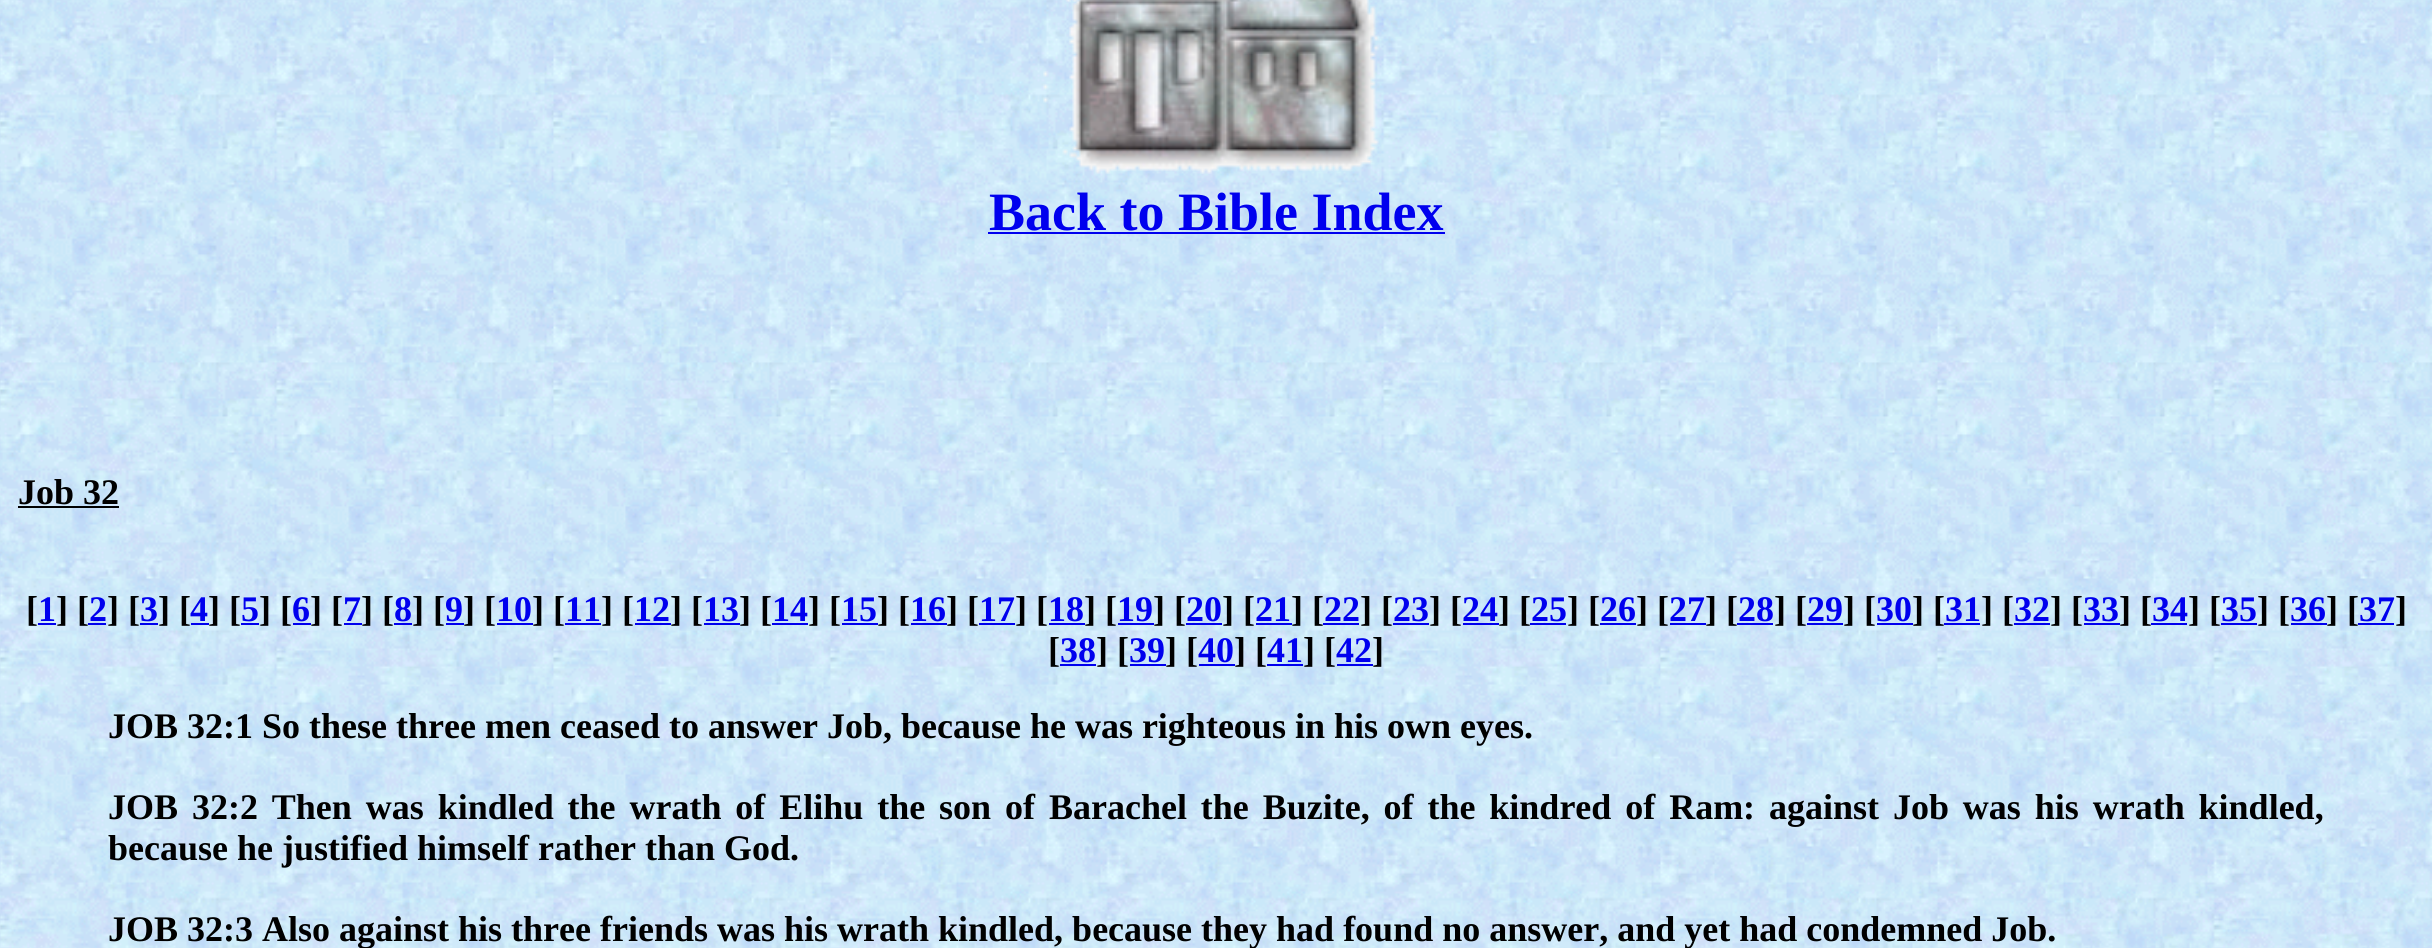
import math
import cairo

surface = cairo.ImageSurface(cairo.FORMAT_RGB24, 2432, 948)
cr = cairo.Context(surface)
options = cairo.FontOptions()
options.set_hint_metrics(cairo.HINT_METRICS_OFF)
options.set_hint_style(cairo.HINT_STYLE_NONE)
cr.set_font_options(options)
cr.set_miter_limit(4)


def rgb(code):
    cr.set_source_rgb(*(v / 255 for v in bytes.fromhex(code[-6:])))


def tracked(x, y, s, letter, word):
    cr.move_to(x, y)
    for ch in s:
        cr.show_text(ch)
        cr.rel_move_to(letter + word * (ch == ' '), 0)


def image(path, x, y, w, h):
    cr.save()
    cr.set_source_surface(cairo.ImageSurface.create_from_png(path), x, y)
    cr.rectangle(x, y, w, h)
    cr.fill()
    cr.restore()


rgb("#ffffff")
cr.paint()
image("img/1.png", 0, 0, 2432, 948)
image("img/2.png", 1043, 0, 336, 174)
for x, y, w, h, color in [
    (988, 232, 457, 2, "#0000ee"),
    (18, 506, 101, 2, "#000000"),
    (38, 623, 18, 2, "#0000ee"),
    (88, 623, 18, 2, "#0000ee"),
    (140, 623, 18, 2, "#0000ee"),
    (191, 623, 18, 2, "#0000ee"),
    (241, 623, 18, 2, "#0000ee"),
    (293, 623, 18, 2, "#0000ee"),
    (344, 623, 18, 2, "#0000ee"),
    (394, 623, 18, 2, "#0000ee"),
    (446, 623, 18, 2, "#0000ee"),
    (497, 623, 36, 2, "#0000ee"),
    (565, 623, 36, 2, "#0000ee"),
    (635, 623, 36, 2, "#0000ee"),
    (704, 623, 36, 2, "#0000ee"),
    (772, 623, 36, 2, "#0000ee"),
    (842, 623, 36, 2, "#0000ee"),
    (911, 623, 36, 2, "#0000ee"),
    (979, 623, 36, 2, "#0000ee"),
    (1049, 623, 36, 2, "#0000ee"),
    (1118, 623, 36, 2, "#0000ee"),
    (1186, 623, 36, 2, "#0000ee"),
    (1256, 623, 36, 2, "#0000ee"),
    (1323, 623, 36, 2, "#0000ee"),
    (1393, 623, 36, 2, "#0000ee"),
    (1463, 623, 36, 2, "#0000ee"),
    (1530, 623, 36, 2, "#0000ee"),
    (1600, 623, 36, 2, "#0000ee"),
    (1670, 623, 36, 2, "#0000ee"),
    (1737, 623, 36, 2, "#0000ee"),
    (1807, 623, 36, 2, "#0000ee"),
    (1877, 623, 36, 2, "#0000ee"),
    (1944, 623, 36, 2, "#0000ee"),
    (2014, 623, 36, 2, "#0000ee"),
    (2084, 623, 36, 2, "#0000ee"),
    (2151, 623, 36, 2, "#0000ee"),
    (2221, 623, 36, 2, "#0000ee"),
    (2291, 623, 36, 2, "#0000ee"),
    (2358, 623, 36, 2, "#0000ee"),
    (1060, 664, 36, 2, "#0000ee"),
    (1130, 664, 36, 2, "#0000ee"),
    (1199, 664, 36, 2, "#0000ee"),
    (1267, 664, 36, 2, "#0000ee"),
    (1337, 664, 36, 2, "#0000ee"),
]:
    rgb(color)
    cr.rectangle(x, y, w, h)
    cr.fill()
cr.select_font_face("Liberation Serif", cairo.FONT_SLANT_NORMAL, cairo.FONT_WEIGHT_BOLD)
cr.set_font_size(54)
cr.move_to(989, 230)
cr.show_text("Back to Bible Index")
cr.set_font_size(36)
rgb("#000000")
cr.move_to(18, 504)
cr.show_text("Job 32")
cr.move_to(26, 621)
cr.show_text("[")
rgb("#0000ee")
cr.move_to(38, 621)
cr.show_text("1")
rgb("#000000")
cr.move_to(56, 621)
cr.show_text("] [")
rgb("#0000ee")
cr.move_to(89, 621)
cr.show_text("2")
rgb("#000000")
cr.move_to(107, 621)
cr.show_text("] [")
rgb("#0000ee")
cr.move_to(140, 621)
cr.show_text("3")
rgb("#000000")
cr.move_to(158, 621)
cr.show_text("] [")
rgb("#0000ee")
cr.move_to(190, 621)
cr.show_text("4")
rgb("#000000")
cr.move_to(208, 621)
cr.show_text("] [")
rgb("#0000ee")
cr.move_to(241, 621)
cr.show_text("5")
rgb("#000000")
cr.move_to(259, 621)
cr.show_text("] [")
rgb("#0000ee")
cr.move_to(292, 621)
cr.show_text("6")
rgb("#000000")
cr.move_to(310, 621)
cr.show_text("] [")
rgb("#0000ee")
cr.move_to(343, 621)
cr.show_text("7")
rgb("#000000")
cr.move_to(361, 621)
cr.show_text("] [")
rgb("#0000ee")
cr.move_to(394, 621)
cr.show_text("8")
rgb("#000000")
cr.move_to(412, 621)
cr.show_text("] [")
rgb("#0000ee")
cr.move_to(445, 621)
cr.show_text("9")
rgb("#000000")
cr.move_to(463, 621)
cr.show_text("] [")
rgb("#0000ee")
cr.move_to(496, 621)
cr.show_text("10")
rgb("#000000")
cr.move_to(532, 621)
cr.show_text("] [")
rgb("#0000ee")
cr.move_to(565, 621)
cr.show_text("11")
rgb("#000000")
cr.move_to(601, 621)
cr.show_text("] [")
rgb("#0000ee")
cr.move_to(634, 621)
cr.show_text("12")
rgb("#000000")
cr.move_to(670, 621)
cr.show_text("] [")
rgb("#0000ee")
cr.move_to(703, 621)
cr.show_text("13")
rgb("#000000")
cr.move_to(739, 621)
cr.show_text("] [")
rgb("#0000ee")
cr.move_to(772, 621)
cr.show_text("14")
rgb("#000000")
cr.move_to(808, 621)
cr.show_text("] [")
rgb("#0000ee")
cr.move_to(841, 621)
cr.show_text("15")
rgb("#000000")
cr.move_to(877, 621)
cr.show_text("] [")
rgb("#0000ee")
cr.move_to(910, 621)
cr.show_text("16")
rgb("#000000")
cr.move_to(946, 621)
cr.show_text("] [")
rgb("#0000ee")
cr.move_to(979, 621)
cr.show_text("17")
rgb("#000000")
cr.move_to(1015, 621)
cr.show_text("] [")
rgb("#0000ee")
cr.move_to(1048, 621)
cr.show_text("18")
rgb("#000000")
cr.move_to(1084, 621)
cr.show_text("] [")
rgb("#0000ee")
cr.move_to(1117, 621)
cr.show_text("19")
rgb("#000000")
cr.move_to(1153, 621)
cr.show_text("] [")
rgb("#0000ee")
cr.move_to(1186, 621)
cr.show_text("20")
rgb("#000000")
cr.move_to(1222, 621)
cr.show_text("] [")
rgb("#0000ee")
cr.move_to(1255, 621)
cr.show_text("21")
rgb("#000000")
cr.move_to(1291, 621)
cr.show_text("] [")
rgb("#0000ee")
cr.move_to(1324, 621)
cr.show_text("22")
rgb("#000000")
cr.move_to(1360, 621)
cr.show_text("] [")
rgb("#0000ee")
cr.move_to(1393, 621)
cr.show_text("23")
rgb("#000000")
cr.move_to(1429, 621)
cr.show_text("] [")
rgb("#0000ee")
cr.move_to(1462, 621)
cr.show_text("24")
rgb("#000000")
cr.move_to(1498, 621)
cr.show_text("] [")
rgb("#0000ee")
cr.move_to(1531, 621)
cr.show_text("25")
rgb("#000000")
cr.move_to(1567, 621)
cr.show_text("] [")
rgb("#0000ee")
cr.move_to(1600, 621)
cr.show_text("26")
rgb("#000000")
cr.move_to(1636, 621)
cr.show_text("] [")
rgb("#0000ee")
cr.move_to(1669, 621)
cr.show_text("27")
rgb("#000000")
cr.move_to(1705, 621)
cr.show_text("] [")
rgb("#0000ee")
cr.move_to(1738, 621)
cr.show_text("28")
rgb("#000000")
cr.move_to(1774, 621)
cr.show_text("] [")
rgb("#0000ee")
cr.move_to(1807, 621)
cr.show_text("29")
rgb("#000000")
cr.move_to(1843, 621)
cr.show_text("] [")
rgb("#0000ee")
cr.move_to(1876, 621)
cr.show_text("30")
rgb("#000000")
cr.move_to(1912, 621)
cr.show_text("] [")
rgb("#0000ee")
cr.move_to(1945, 621)
cr.show_text("31")
rgb("#000000")
cr.move_to(1981, 621)
cr.show_text("] [")
rgb("#0000ee")
cr.move_to(2014, 621)
cr.show_text("32")
rgb("#000000")
cr.move_to(2050, 621)
cr.show_text("] [")
rgb("#0000ee")
cr.move_to(2083, 621)
cr.show_text("33")
rgb("#000000")
cr.move_to(2119, 621)
cr.show_text("] [")
rgb("#0000ee")
cr.move_to(2152, 621)
cr.show_text("34")
rgb("#000000")
cr.move_to(2188, 621)
cr.show_text("] [")
rgb("#0000ee")
cr.move_to(2221, 621)
cr.show_text("35")
rgb("#000000")
cr.move_to(2257, 621)
cr.show_text("] [")
rgb("#0000ee")
cr.move_to(2290, 621)
cr.show_text("36")
rgb("#000000")
cr.move_to(2326, 621)
cr.show_text("] [")
rgb("#0000ee")
cr.move_to(2359, 621)
cr.show_text("37")
rgb("#000000")
cr.move_to(2395, 621)
cr.show_text("]")
cr.move_to(1048, 662)
cr.show_text("[")
rgb("#0000ee")
cr.move_to(1060, 662)
cr.show_text("38")
rgb("#000000")
cr.move_to(1096, 662)
cr.show_text("] [")
rgb("#0000ee")
cr.move_to(1129, 662)
cr.show_text("39")
rgb("#000000")
cr.move_to(1165, 662)
cr.show_text("] [")
rgb("#0000ee")
cr.move_to(1198, 662)
cr.show_text("40")
rgb("#000000")
cr.move_to(1234, 662)
cr.show_text("] [")
rgb("#0000ee")
cr.move_to(1267, 662)
cr.show_text("41")
rgb("#000000")
cr.move_to(1303, 662)
cr.show_text("] [")
rgb("#0000ee")
cr.move_to(1336, 662)
cr.show_text("42")
rgb("#000000")
cr.move_to(1372, 662)
cr.show_text("]")
cr.move_to(108, 738)
cr.show_text("JOB 32:1 So these three men ceased to answer Job, because he was righteous in his own eyes.")
tracked(108, 819, "JOB 32:2 Then was kindled the wrath of Elihu the son of Barachel the Buzite, of the kindred of Ram: against Job was his wrath kindled,", 0, 4.9)
cr.move_to(108, 860)
cr.show_text("because he justified himself rather than God.")
cr.move_to(108, 941)
cr.show_text("JOB 32:3 Also against his three friends was his wrath kindled, because they had found no answer, and yet had condemned Job.")
surface.write_to_png("page.png")
